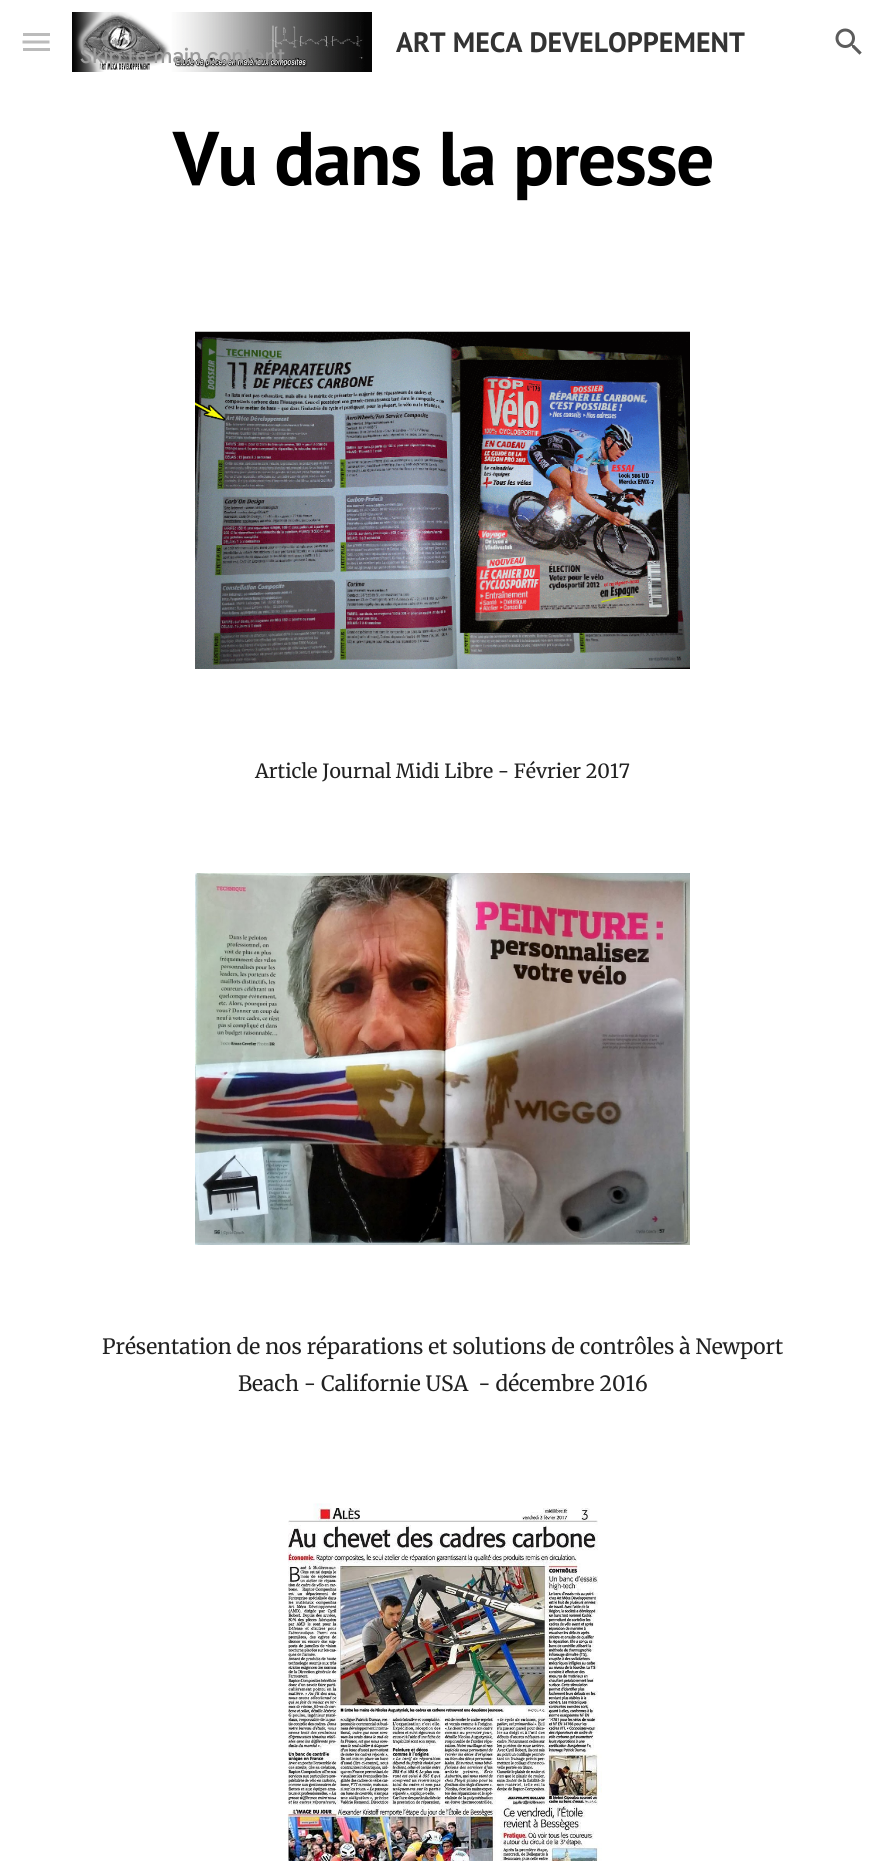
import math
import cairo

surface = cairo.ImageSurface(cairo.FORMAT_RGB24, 885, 1861)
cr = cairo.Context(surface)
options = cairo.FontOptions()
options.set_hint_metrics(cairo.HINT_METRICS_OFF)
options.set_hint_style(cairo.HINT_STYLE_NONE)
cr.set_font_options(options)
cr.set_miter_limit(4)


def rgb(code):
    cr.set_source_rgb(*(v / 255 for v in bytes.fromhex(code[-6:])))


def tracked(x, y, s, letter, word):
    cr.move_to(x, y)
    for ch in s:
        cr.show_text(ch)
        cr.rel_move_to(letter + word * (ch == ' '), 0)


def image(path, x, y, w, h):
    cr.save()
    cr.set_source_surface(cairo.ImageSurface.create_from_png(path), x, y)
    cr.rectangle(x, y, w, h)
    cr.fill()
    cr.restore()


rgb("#ffffff")
cr.paint()
rgb("#bbbbbb")
cr.rectangle(23, 33, 27, 3)
cr.fill()
cr.new_path()
cr.move_to(22.5, 42)
cr.line_to(49.5, 42)
cr.set_line_width(3)
cr.stroke()
cr.rectangle(23, 48, 27, 3)
cr.fill()
image("img/1.png", 72, 12, 300, 60)
image("img/2.png", 835, 28, 27, 27)
image("img/3.png", 195, 331, 495, 338)
image("img/4.png", 195, 873, 495, 372)
image("img/5.png", 287, 1503, 315, 358)
cr.select_font_face("PT Sans", cairo.FONT_SLANT_NORMAL, cairo.FONT_WEIGHT_BOLD)
cr.set_font_size(28)
rgb("#333333")
cr.move_to(396, 52)
cr.show_text("ART MECA DEVELOPPEMENT")
cr.set_font_size(76)
rgb("#000000")
tracked(173, 185, "Vu dans la presse", -1.5, 0)
cr.select_font_face("Merriweather")
cr.set_font_size(19.5)
rgb("#212121")
cr.move_to(255, 778)
cr.show_text("Article Journal Midi Libre - Février 2017")
cr.set_font_size(21)
cr.move_to(102, 1354)
cr.show_text("Présentation de nos réparations et solutions de contrôles à Newport")
cr.move_to(238, 1391)
cr.show_text("Beach - Californie USA  - décembre 2016")
cr.select_font_face("Google Sans Medium")
rgb("#9a9a9a")
tracked(80, 63, "Skip to main content", 0.25, 0)
surface.write_to_png("page.png")
